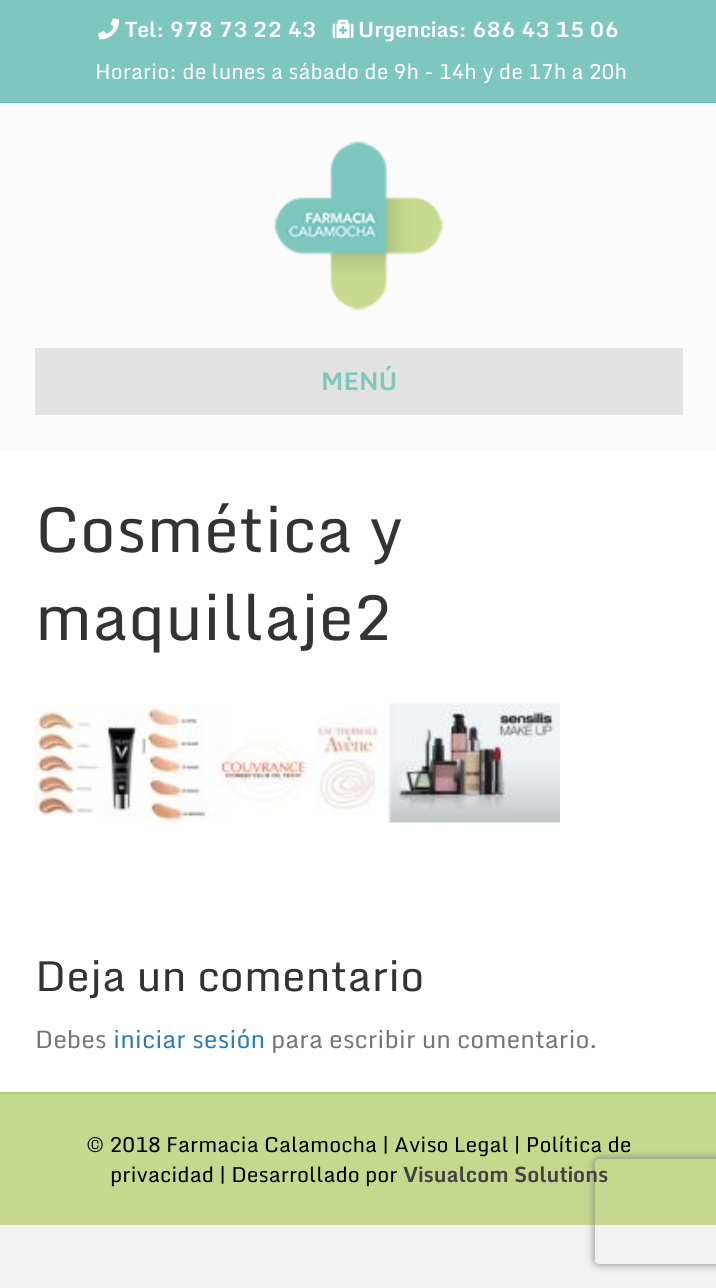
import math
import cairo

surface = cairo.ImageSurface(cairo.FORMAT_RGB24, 716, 1288)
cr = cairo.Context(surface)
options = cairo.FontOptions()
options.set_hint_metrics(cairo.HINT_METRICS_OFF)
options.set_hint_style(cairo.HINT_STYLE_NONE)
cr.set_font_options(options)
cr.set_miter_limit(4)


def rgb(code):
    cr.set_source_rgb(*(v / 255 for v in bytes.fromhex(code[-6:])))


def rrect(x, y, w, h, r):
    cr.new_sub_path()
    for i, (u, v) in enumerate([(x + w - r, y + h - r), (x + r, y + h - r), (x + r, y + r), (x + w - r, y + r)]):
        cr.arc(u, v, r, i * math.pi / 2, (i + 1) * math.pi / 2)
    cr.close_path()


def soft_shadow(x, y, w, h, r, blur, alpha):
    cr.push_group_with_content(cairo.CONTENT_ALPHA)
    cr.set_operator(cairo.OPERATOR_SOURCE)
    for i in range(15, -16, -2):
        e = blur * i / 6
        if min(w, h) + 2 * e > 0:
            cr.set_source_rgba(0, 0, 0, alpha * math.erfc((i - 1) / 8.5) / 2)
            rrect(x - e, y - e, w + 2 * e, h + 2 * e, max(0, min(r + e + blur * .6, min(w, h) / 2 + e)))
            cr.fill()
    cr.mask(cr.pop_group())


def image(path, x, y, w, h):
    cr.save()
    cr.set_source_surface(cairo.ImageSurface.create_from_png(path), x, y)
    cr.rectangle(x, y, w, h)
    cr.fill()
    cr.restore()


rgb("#f2f2f2")
cr.paint()
rgb("#7ec7be")
cr.rectangle(0, 0, 716, 102)
cr.fill()
rgb("#5ab8ac")
cr.rectangle(0, 102, 716, 1)
cr.fill()
image("img/1.png", 98, 18, 21, 22)
image("img/2.png", 332, 19, 22, 20)
rgb("#fbfbfb")
cr.rectangle(0, 103, 716, 347)
cr.fill()
image("img/3.png", 274, 141, 170, 170)
rgb("#e2e2e2")
cr.rectangle(35, 348, 648, 67)
cr.fill()
rgb("#ffffff")
cr.rectangle(0, 450, 716, 642)
cr.fill()
image("img/4.png", 35, 703, 525, 120)
rgb("#c4d98e")
cr.rectangle(0, 1094, 716, 131)
cr.fill()
rgb("#b0cc68")
cr.rectangle(0, 1092, 716, 2)
cr.fill()
cr.save()
cr.set_fill_rule(cairo.FILL_RULE_EVEN_ODD)
cr.new_path()
cr.move_to(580, 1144)
cr.line_to(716, 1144)
cr.line_to(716, 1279)
cr.line_to(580, 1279)
cr.close_path()
cr.move_to(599, 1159)
cr.line_to(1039, 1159)
cr.curve_to(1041, 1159, 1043, 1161, 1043, 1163)
cr.line_to(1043, 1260)
cr.curve_to(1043, 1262, 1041, 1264, 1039, 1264)
cr.line_to(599, 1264)
cr.curve_to(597, 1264, 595, 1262, 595, 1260)
cr.line_to(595, 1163)
cr.curve_to(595, 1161, 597, 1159, 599, 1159)
cr.close_path()
cr.clip()
rgb("#808080")
soft_shadow(595, 1159, 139, 105, 4, 4.5, 1)
cr.restore()
cr.select_font_face("Monda", cairo.FONT_SLANT_NORMAL, cairo.FONT_WEIGHT_BOLD)
cr.set_font_size(21)
rgb("#ffffff")
cr.move_to(125, 37)
cr.show_text("Tel: 978 73 22 43")
cr.move_to(358, 37)
cr.show_text("Urgencias: 686 43 15 06")
cr.select_font_face("Monda")
cr.move_to(95, 79)
cr.show_text("Horario: de lunes a sábado de 9h - 14h y de 17h a 20h")
cr.select_font_face("Monda", cairo.FONT_SLANT_NORMAL, cairo.FONT_WEIGHT_BOLD)
cr.set_font_size(24.5)
rgb("#7ec7be")
cr.move_to(321, 390)
cr.show_text("MENÚ")
cr.select_font_face("Monda")
cr.set_font_size(63)
rgb("#333333")
cr.move_to(35, 552)
cr.show_text("Cosmética y")
cr.move_to(35, 640)
cr.show_text("maquillaje2")
cr.set_font_size(42)
cr.move_to(35, 991)
cr.show_text("Deja un comentario")
cr.set_font_size(24.5)
rgb("#757575")
cr.move_to(35, 1048)
cr.show_text("Debes")
rgb("#2b7bb9")
cr.move_to(113, 1048)
cr.show_text("iniciar sesión")
rgb("#757575")
cr.move_to(271, 1048)
cr.show_text("para escribir un comentario.")
cr.set_font_size(21)
rgb("#000000")
cr.move_to(86, 1152)
cr.show_text("© 2018 Farmacia Calamocha | Aviso Legal | Política de")
cr.move_to(110, 1182)
cr.show_text("privacidad | Desarrollado por")
cr.select_font_face("Monda", cairo.FONT_SLANT_NORMAL, cairo.FONT_WEIGHT_BOLD)
rgb("#424242")
cr.move_to(403, 1182)
cr.show_text("Visualcom Solutions")
surface.write_to_png("page.png")
